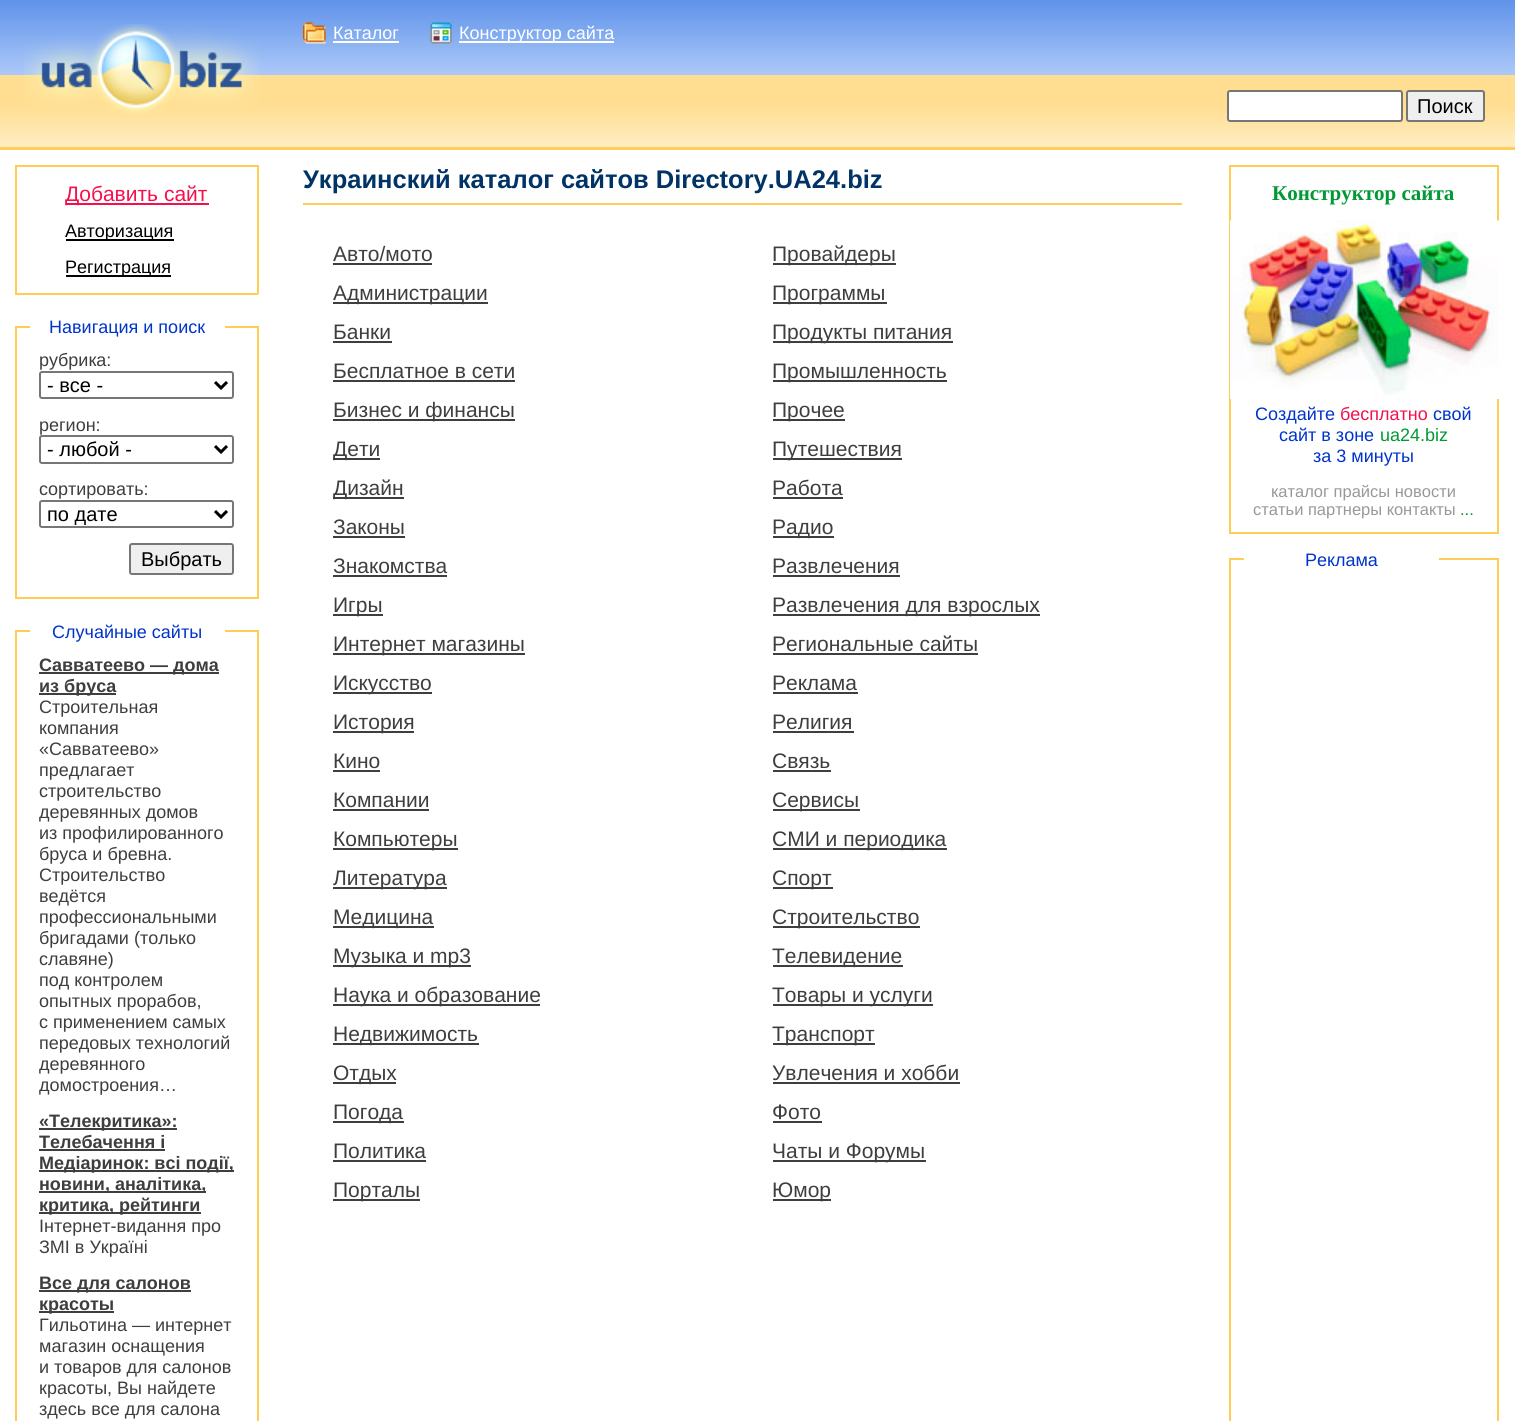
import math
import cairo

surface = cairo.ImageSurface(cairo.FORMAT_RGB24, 1515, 1421)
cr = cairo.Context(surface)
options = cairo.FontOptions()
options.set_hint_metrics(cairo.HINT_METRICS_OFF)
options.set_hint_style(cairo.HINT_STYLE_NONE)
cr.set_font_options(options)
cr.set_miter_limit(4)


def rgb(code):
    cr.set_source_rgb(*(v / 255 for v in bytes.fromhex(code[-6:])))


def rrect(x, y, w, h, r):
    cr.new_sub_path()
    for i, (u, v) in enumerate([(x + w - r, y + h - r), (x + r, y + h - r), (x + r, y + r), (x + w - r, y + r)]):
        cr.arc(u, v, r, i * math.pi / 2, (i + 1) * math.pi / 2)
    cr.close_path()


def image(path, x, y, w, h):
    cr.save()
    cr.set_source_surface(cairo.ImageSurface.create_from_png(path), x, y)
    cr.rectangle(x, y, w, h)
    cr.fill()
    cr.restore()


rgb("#ffffff")
cr.paint()
image("img/2.png", 0, 0, 1515, 75)
image("img/5.png", 0, 75, 1515, 75)
image("img/1.png", 24, 24, 236, 91)
image("img/3.png", 303, 22, 23, 22)
rgb("#ffffff")
cr.rectangle(333, 41, 66, 2)
cr.fill()
image("img/4.png", 430, 22, 22, 22)
cr.rectangle(459, 41, 155, 2)
cr.fill()
rrect(1228, 91, 174, 30, 2)
cr.fill_preserve()
rgb("#767676")
cr.stroke()
rgb("#efefef")
rrect(1407, 91, 77, 30, 2)
cr.fill_preserve()
rgb("#767676")
cr.stroke()
for x, y, w, h, color in [
    (15, 165, 243, 2, "#ffcc55"),
    (257, 165, 2, 129, "#ffcc55"),
    (15, 293, 243, 2, "#ffcc55"),
    (15, 165, 2, 129, "#ffcc55"),
    (66, 203, 143, 2, "#f5104b"),
    (66, 239, 108, 2, "#000000"),
    (66, 275, 105, 2, "#000000"),
    (15, 326, 243, 2, "#ffcc55"),
    (30, 326, 195, 2, "#ffffff"),
    (257, 326, 2, 273, "#ffcc55"),
    (15, 597, 243, 2, "#ffcc55"),
    (15, 326, 2, 273, "#ffcc55"),
]:
    rgb(color)
    cr.rectangle(x, y, w, h)
    cr.fill()
rrect(40, 372, 193, 26, 2)
rgb("#767676")
cr.stroke()
cr.new_path()
cr.move_to(215, 382)
cr.line_to(221, 388)
cr.line_to(227, 382)
rgb("#000000")
cr.set_line_width(3)
cr.stroke()
rrect(40, 436, 193, 27, 2)
rgb("#767676")
cr.set_line_width(2)
cr.stroke()
cr.new_path()
cr.move_to(215, 446)
cr.line_to(221, 452)
cr.line_to(227, 446)
rgb("#000000")
cr.set_line_width(3)
cr.stroke()
rrect(40, 501, 193, 26, 2)
rgb("#767676")
cr.set_line_width(2)
cr.stroke()
cr.new_path()
cr.move_to(215, 511)
cr.line_to(221, 517)
cr.line_to(227, 511)
rgb("#000000")
cr.set_line_width(3)
cr.stroke()
rgb("#efefef")
rrect(130, 544, 103, 30, 2)
cr.fill_preserve()
rgb("#767676")
cr.set_line_width(2)
cr.stroke()
for x, y, w, h, color in [
    (15, 630, 243, 2, "#ffcc55"),
    (30, 630, 195, 2, "#ffffff"),
    (257, 630, 2, 791, "#ffcc55"),
    (15, 630, 2, 791, "#ffcc55"),
    (39, 672, 180, 2, "#3e3e3e"),
    (39, 693, 77, 2, "#3e3e3e"),
    (39, 1128, 138, 2, "#3e3e3e"),
    (39, 1149, 126, 2, "#3e3e3e"),
    (39, 1170, 195, 2, "#3e3e3e"),
    (39, 1191, 167, 2, "#3e3e3e"),
    (39, 1212, 162, 2, "#3e3e3e"),
    (39, 1290, 152, 2, "#3e3e3e"),
    (39, 1311, 75, 2, "#3e3e3e"),
    (303, 203, 879, 2, "#ffcc55"),
    (333, 263, 99, 2, "#3e3e3e"),
    (333, 302, 155, 2, "#3e3e3e"),
    (333, 341, 59, 2, "#3e3e3e"),
    (333, 380, 182, 2, "#3e3e3e"),
    (333, 419, 182, 2, "#3e3e3e"),
    (333, 458, 47, 2, "#3e3e3e"),
    (333, 497, 71, 2, "#3e3e3e"),
    (333, 536, 72, 2, "#3e3e3e"),
    (333, 575, 114, 2, "#3e3e3e"),
    (333, 614, 50, 2, "#3e3e3e"),
    (333, 653, 192, 2, "#3e3e3e"),
    (333, 692, 99, 2, "#3e3e3e"),
    (333, 731, 81, 2, "#3e3e3e"),
    (333, 770, 47, 2, "#3e3e3e"),
    (333, 809, 96, 2, "#3e3e3e"),
    (333, 848, 125, 2, "#3e3e3e"),
    (333, 887, 114, 2, "#3e3e3e"),
    (333, 926, 101, 2, "#3e3e3e"),
    (333, 965, 138, 2, "#3e3e3e"),
    (333, 1004, 207, 2, "#3e3e3e"),
    (333, 1043, 146, 2, "#3e3e3e"),
    (333, 1082, 63, 2, "#3e3e3e"),
    (333, 1121, 71, 2, "#3e3e3e"),
    (333, 1160, 93, 2, "#3e3e3e"),
    (333, 1199, 87, 2, "#3e3e3e"),
    (773, 263, 123, 2, "#3e3e3e"),
    (773, 302, 114, 2, "#3e3e3e"),
    (773, 341, 180, 2, "#3e3e3e"),
    (773, 380, 174, 2, "#3e3e3e"),
    (773, 419, 72, 2, "#3e3e3e"),
    (773, 458, 129, 2, "#3e3e3e"),
    (773, 497, 70, 2, "#3e3e3e"),
    (773, 536, 61, 2, "#3e3e3e"),
    (773, 575, 127, 2, "#3e3e3e"),
    (773, 614, 267, 2, "#3e3e3e"),
    (773, 653, 205, 2, "#3e3e3e"),
    (773, 692, 85, 2, "#3e3e3e"),
    (773, 731, 81, 2, "#3e3e3e"),
    (773, 770, 58, 2, "#3e3e3e"),
    (773, 809, 87, 2, "#3e3e3e"),
    (773, 848, 174, 2, "#3e3e3e"),
    (773, 887, 60, 2, "#3e3e3e"),
    (773, 926, 147, 2, "#3e3e3e"),
    (773, 965, 130, 2, "#3e3e3e"),
    (773, 1004, 160, 2, "#3e3e3e"),
    (773, 1043, 102, 2, "#3e3e3e"),
    (773, 1082, 187, 2, "#3e3e3e"),
    (773, 1121, 49, 2, "#3e3e3e"),
    (773, 1160, 153, 2, "#3e3e3e"),
    (773, 1199, 58, 2, "#3e3e3e"),
]:
    rgb(color)
    cr.rectangle(x, y, w, h)
    cr.fill()
cr.rectangle(1230, 166, 268, 367)
rgb("#ffcc55")
cr.stroke()
image("img/6.png", 1230, 220, 269, 179)
cr.rectangle(1230, 559, 268, 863)
cr.stroke()
rgb("#ffffff")
cr.rectangle(1244, 558, 195, 2)
cr.fill()
cr.select_font_face("Liberation Sans")
cr.set_font_size(18)
cr.move_to(333, 39)
cr.show_text("Каталог")
cr.move_to(459, 39)
cr.show_text("Конструктор сайта")
cr.set_font_size(20)
rgb("#000000")
cr.move_to(1417, 113)
cr.show_text("Поиск")
cr.set_font_size(21)
rgb("#f5104b")
cr.move_to(65, 201)
cr.show_text("Добавить сайт")
cr.set_font_size(18)
rgb("#000000")
cr.move_to(65, 237)
cr.show_text("Авторизация")
cr.move_to(65, 273)
cr.show_text("Регистрация")
rgb("#0033cc")
cr.move_to(49, 333)
cr.show_text("Навигация и поиск")
rgb("#3e3e3e")
cr.move_to(39, 366)
cr.show_text("рубрика:")
cr.set_font_size(20)
rgb("#000000")
cr.move_to(47, 392)
cr.show_text("- все -")
cr.set_font_size(18)
rgb("#3e3e3e")
cr.move_to(39, 431)
cr.show_text("регион:")
cr.set_font_size(20)
rgb("#000000")
cr.move_to(47, 456)
cr.show_text("- любой -")
cr.set_font_size(18)
rgb("#3e3e3e")
cr.move_to(39, 495)
cr.show_text("сортировать:")
cr.set_font_size(20)
rgb("#000000")
cr.move_to(47, 521)
cr.show_text("по дате")
cr.move_to(141, 566)
cr.show_text("Выбрать")
cr.set_font_size(18)
rgb("#0033cc")
cr.move_to(52, 638)
cr.show_text("Случайные сайты")
cr.select_font_face("Liberation Sans", cairo.FONT_SLANT_NORMAL, cairo.FONT_WEIGHT_BOLD)
rgb("#3e3e3e")
cr.move_to(39, 671)
cr.show_text("Савватеево — дома")
cr.move_to(39, 692)
cr.show_text("из бруса")
cr.select_font_face("Liberation Sans")
for x, y, s in [
    (39, 713, "Строительная"),
    (39, 734, "компания"),
    (39, 755, "«Савватеево»"),
    (39, 776, "предлагает"),
    (39, 797, "строительство"),
    (39, 818, "деревянных домов"),
    (39, 839, "из профилированного"),
    (39, 860, "бруса и бревна."),
    (39, 881, "Строительство"),
    (39, 902, "ведётся"),
    (39, 923, "профессиональными"),
    (39, 944, "бригадами (только"),
    (39, 965, "славяне)"),
    (39, 986, "под контролем"),
    (39, 1007, "опытных прорабов,"),
    (39, 1028, "с применением самых"),
    (39, 1049, "передовых технологий"),
    (39, 1070, "деревянного"),
    (39, 1091, "домостроения…"),
]:
    cr.move_to(x, y)
    cr.show_text(s)
cr.select_font_face("Liberation Sans", cairo.FONT_SLANT_NORMAL, cairo.FONT_WEIGHT_BOLD)
for x, y, s in [
    (39, 1127, "«Телекритика»:"),
    (39, 1148, "Телебачення і"),
    (39, 1169, "Медіаринок: всі події,"),
    (39, 1190, "новини, аналітика,"),
    (39, 1211, "критика, рейтинги"),
]:
    cr.move_to(x, y)
    cr.show_text(s)
cr.select_font_face("Liberation Sans")
cr.move_to(39, 1232)
cr.show_text("Інтернет-видання про")
cr.move_to(39, 1253)
cr.show_text("ЗМІ в Україні")
cr.select_font_face("Liberation Sans", cairo.FONT_SLANT_NORMAL, cairo.FONT_WEIGHT_BOLD)
cr.move_to(39, 1289)
cr.show_text("Все для салонов")
cr.move_to(39, 1310)
cr.show_text("красоты")
cr.select_font_face("Liberation Sans")
for x, y, s in [
    (39, 1331, "Гильотина — интернет"),
    (39, 1352, "магазин оснащения"),
    (39, 1373, "и товаров для салонов"),
    (39, 1394, "красоты, Вы найдете"),
    (39, 1415, "здесь все для салона"),
]:
    cr.move_to(x, y)
    cr.show_text(s)
cr.select_font_face("Liberation Sans", cairo.FONT_SLANT_NORMAL, cairo.FONT_WEIGHT_BOLD)
cr.set_font_size(25.5)
rgb("#003366")
cr.move_to(303, 188)
cr.show_text("Украинский каталог сайтов Directory.UA24.biz")
cr.select_font_face("Liberation Sans")
cr.set_font_size(21)
rgb("#3e3e3e")
for x, y, s in [
    (333, 261, "Авто/мото"),
    (333, 300, "Администрации"),
    (333, 339, "Банки"),
    (333, 378, "Бесплатное в сети"),
    (333, 417, "Бизнес и финансы"),
    (333, 456, "Дети"),
    (333, 495, "Дизайн"),
    (333, 534, "Законы"),
    (333, 573, "Знакомства"),
    (333, 612, "Игры"),
    (333, 651, "Интернет магазины"),
    (333, 690, "Искусство"),
    (333, 729, "История"),
    (333, 768, "Кино"),
    (333, 807, "Компании"),
    (333, 846, "Компьютеры"),
    (333, 885, "Литература"),
    (333, 924, "Медицина"),
    (333, 963, "Музыка и mp3"),
    (333, 1002, "Наука и образование"),
    (333, 1041, "Недвижимость"),
    (333, 1080, "Отдых"),
    (333, 1119, "Погода"),
    (333, 1158, "Политика"),
    (333, 1197, "Порталы"),
    (772, 261, "Провайдеры"),
    (772, 300, "Программы"),
    (772, 339, "Продукты питания"),
    (772, 378, "Промышленность"),
    (772, 417, "Прочее"),
    (772, 456, "Путешествия"),
    (772, 495, "Работа"),
    (772, 534, "Радио"),
    (772, 573, "Развлечения"),
    (772, 612, "Развлечения для взрослых"),
    (772, 651, "Региональные сайты"),
    (772, 690, "Реклама"),
    (772, 729, "Религия"),
    (772, 768, "Связь"),
    (772, 807, "Сервисы"),
    (772, 846, "СМИ и периодика"),
    (772, 885, "Спорт"),
    (772, 924, "Строительство"),
    (772, 963, "Телевидение"),
    (772, 1002, "Товары и услуги"),
    (772, 1041, "Транспорт"),
    (772, 1080, "Увлечения и хобби"),
    (772, 1119, "Фото"),
    (772, 1158, "Чаты и Форумы"),
    (772, 1197, "Юмор"),
]:
    cr.move_to(x, y)
    cr.show_text(s)
cr.select_font_face("Liberation Serif", cairo.FONT_SLANT_NORMAL, cairo.FONT_WEIGHT_BOLD)
rgb("#009933")
cr.move_to(1272, 200)
cr.show_text("Конструктор сайта")
cr.select_font_face("Liberation Sans")
cr.set_font_size(18)
rgb("#0033cc")
cr.move_to(1255, 420)
cr.show_text("Создайте")
rgb("#f5104b")
cr.move_to(1340, 420)
cr.show_text("бесплатно")
rgb("#0033cc")
cr.move_to(1433, 420)
cr.show_text("свой")
cr.move_to(1279, 441)
cr.show_text("сайт в зоне")
rgb("#009933")
cr.move_to(1380, 441)
cr.show_text("ua24.biz")
rgb("#0033cc")
cr.move_to(1313, 462)
cr.show_text("за 3 минуты")
cr.set_font_size(16.5)
rgb("#999999")
cr.move_to(1271, 497)
cr.show_text("каталог прайсы новости")
cr.move_to(1253, 515)
cr.show_text("статьи партнеры контакты")
rgb("#009933")
cr.move_to(1460, 515)
cr.show_text("...")
cr.set_font_size(18)
rgb("#0033cc")
cr.move_to(1305, 566)
cr.show_text("Реклама")
surface.write_to_png("page.png")
